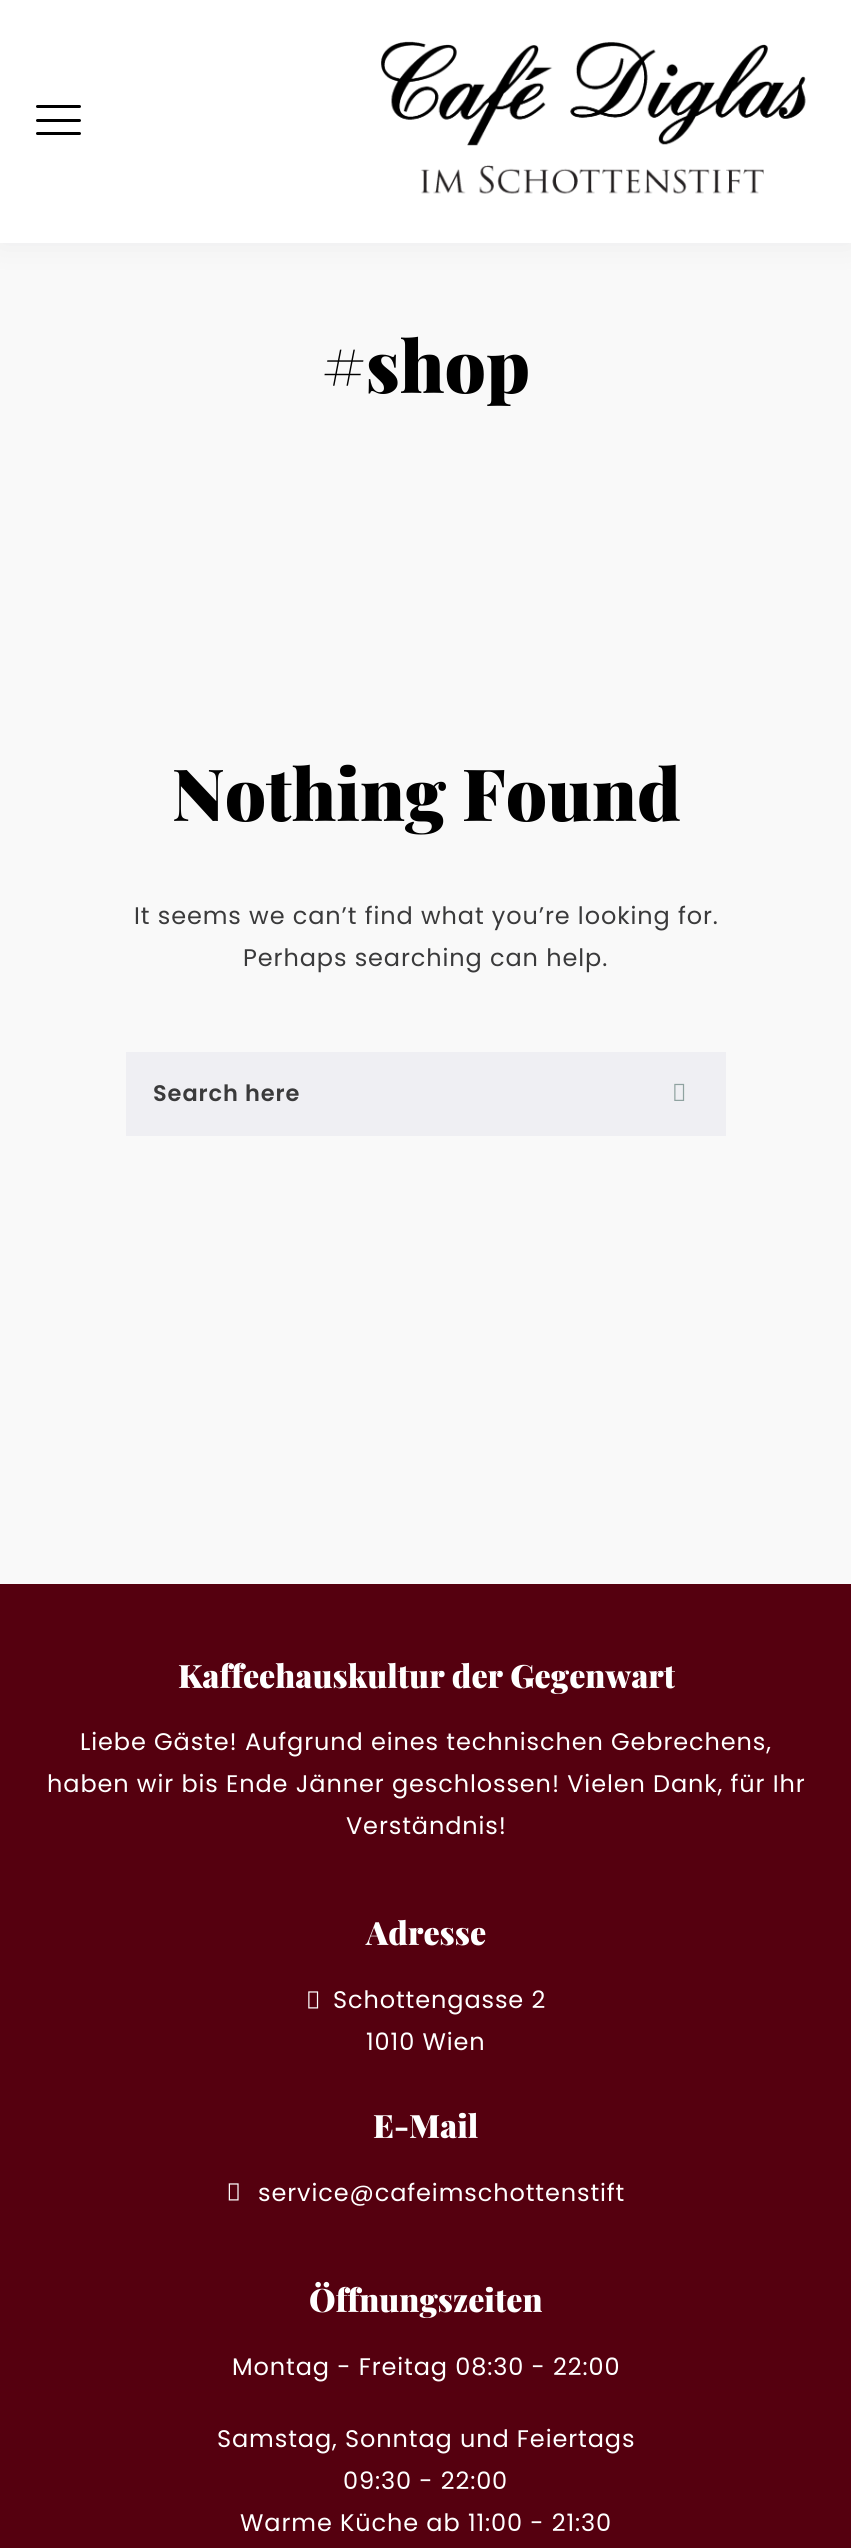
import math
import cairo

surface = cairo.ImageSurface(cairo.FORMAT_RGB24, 851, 2548)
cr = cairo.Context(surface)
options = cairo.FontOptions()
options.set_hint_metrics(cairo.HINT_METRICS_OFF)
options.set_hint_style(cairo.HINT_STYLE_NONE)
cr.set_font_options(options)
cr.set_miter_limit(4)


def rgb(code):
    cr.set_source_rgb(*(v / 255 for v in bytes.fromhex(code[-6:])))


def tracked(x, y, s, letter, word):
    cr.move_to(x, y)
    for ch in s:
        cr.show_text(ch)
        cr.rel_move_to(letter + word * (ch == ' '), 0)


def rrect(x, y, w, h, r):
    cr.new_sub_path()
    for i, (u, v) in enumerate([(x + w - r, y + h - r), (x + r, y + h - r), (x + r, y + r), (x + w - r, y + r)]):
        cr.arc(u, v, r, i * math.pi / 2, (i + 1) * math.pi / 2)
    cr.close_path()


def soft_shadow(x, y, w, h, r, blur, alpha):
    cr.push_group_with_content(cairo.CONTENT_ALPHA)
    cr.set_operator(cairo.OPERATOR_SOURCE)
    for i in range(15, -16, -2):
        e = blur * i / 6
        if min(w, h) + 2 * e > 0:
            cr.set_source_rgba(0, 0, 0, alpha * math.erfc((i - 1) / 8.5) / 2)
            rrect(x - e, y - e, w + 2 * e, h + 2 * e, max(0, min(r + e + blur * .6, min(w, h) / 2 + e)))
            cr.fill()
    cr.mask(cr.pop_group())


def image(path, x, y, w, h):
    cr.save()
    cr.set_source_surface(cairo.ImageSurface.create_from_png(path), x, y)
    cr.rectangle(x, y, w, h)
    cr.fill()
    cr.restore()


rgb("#f9f9f9")
cr.paint()
rgb("#0a0a14")
soft_shadow(0, 0, 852, 243, 0, 18, 0.06)
rgb("#ffffff")
cr.rectangle(0, 0, 851, 243)
cr.fill()
rgb("#000000")
rrect(36, 119, 45, 3, 1.5)
cr.fill()
rrect(36, 105, 45, 3, 1.5)
cr.fill()
rrect(36, 132, 45, 3, 1.5)
cr.fill()
image("img/1.png", 381, 41, 425, 153)
rgb("#efeff3")
cr.rectangle(126, 1052, 600, 84)
cr.fill()
image("img/2.png", 674, 1083, 11, 18)
rgb("#55000f")
cr.rectangle(0, 1584, 851, 964)
cr.fill()
image("img/3.png", 308, 1991, 11, 18)
image("img/4.png", 228, 2183, 11, 18)
cr.select_font_face("Playfair Display Black")
cr.set_font_size(72)
rgb("#000000")
cr.move_to(322, 393)
cr.show_text("#shop")
cr.move_to(172, 821)
cr.show_text("Nothing Found")
cr.select_font_face("Poppins")
cr.set_font_size(24)
rgb("#3a3a3b")
tracked(134, 924, "It seems we can’t find what you’re looking for.", 0.9, 0)
tracked(243, 966, "Perhaps searching can help.", 0.9, 0)
cr.select_font_face("Poppins SemiBold")
cr.set_font_size(22.5)
tracked(153, 1101, "Search here", 0.9, 0)
cr.select_font_face("Playfair Display Black")
cr.set_font_size(32.2)
rgb("#ffffff")
cr.move_to(178, 1688)
cr.show_text("Kaffeehauskultur der Gegenwart")
cr.select_font_face("Poppins")
cr.set_font_size(24)
for x, y, s in [
    (80, 1750, "Liebe Gäste! Aufgrund eines technischen Gebrechens,"),
    (47, 1792, "haben wir bis Ende Jänner geschlossen! Vielen Dank, für Ihr"),
    (346, 1834, "Verständnis!"),
]:
    tracked(x, y, s, 0.9, 0)
cr.select_font_face("Playfair Display Black")
cr.set_font_size(32.2)
cr.move_to(366, 1945)
cr.show_text("Adresse")
cr.select_font_face("Poppins")
cr.set_font_size(24)
tracked(333, 2008, "Schottengasse 2", 0.9, 0)
tracked(366, 2050, "1010 Wien", 0.9, 0)
cr.select_font_face("Playfair Display Black")
cr.set_font_size(32.2)
cr.move_to(373, 2138)
cr.show_text("E-Mail")
cr.select_font_face("Poppins")
cr.set_font_size(24)
tracked(258, 2201, "service@cafeimschottenstift", 0.9, 0)
cr.select_font_face("Playfair Display Black")
cr.set_font_size(32.2)
cr.move_to(309, 2312)
cr.show_text("Öffnungszeiten")
cr.select_font_face("Poppins")
cr.set_font_size(24)
for x, y, s in [
    (232, 2375, "Montag - Freitag 08:30 - 22:00"),
    (217, 2447, "Samstag, Sonntag und Feiertags"),
    (343, 2489, "09:30 - 22:00"),
    (240, 2531, "Warme Küche ab 11:00 - 21:30"),
]:
    tracked(x, y, s, 0.9, 0)
surface.write_to_png("page.png")
